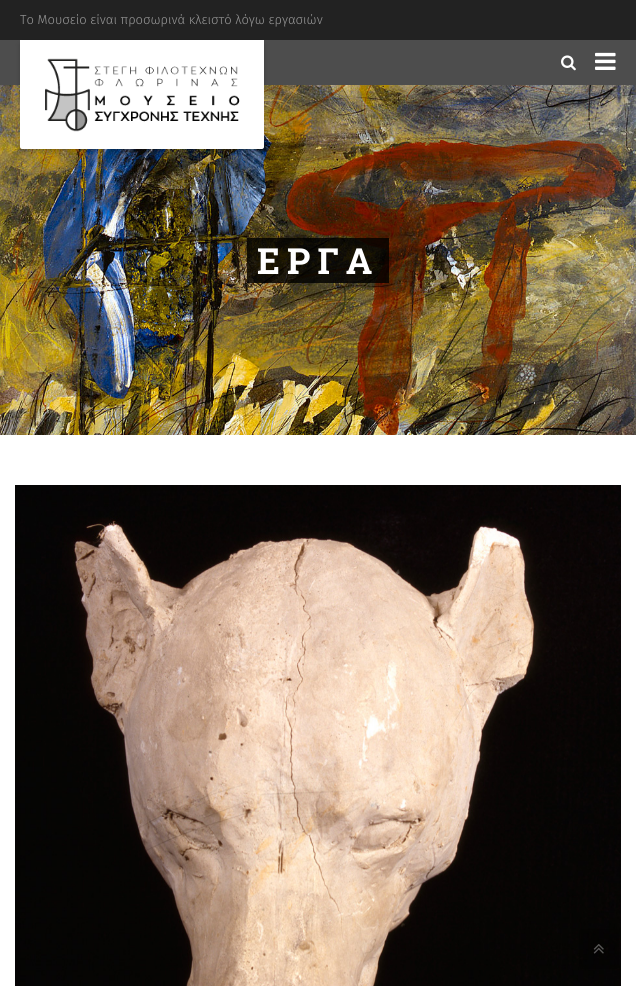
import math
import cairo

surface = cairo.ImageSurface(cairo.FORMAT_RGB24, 636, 986)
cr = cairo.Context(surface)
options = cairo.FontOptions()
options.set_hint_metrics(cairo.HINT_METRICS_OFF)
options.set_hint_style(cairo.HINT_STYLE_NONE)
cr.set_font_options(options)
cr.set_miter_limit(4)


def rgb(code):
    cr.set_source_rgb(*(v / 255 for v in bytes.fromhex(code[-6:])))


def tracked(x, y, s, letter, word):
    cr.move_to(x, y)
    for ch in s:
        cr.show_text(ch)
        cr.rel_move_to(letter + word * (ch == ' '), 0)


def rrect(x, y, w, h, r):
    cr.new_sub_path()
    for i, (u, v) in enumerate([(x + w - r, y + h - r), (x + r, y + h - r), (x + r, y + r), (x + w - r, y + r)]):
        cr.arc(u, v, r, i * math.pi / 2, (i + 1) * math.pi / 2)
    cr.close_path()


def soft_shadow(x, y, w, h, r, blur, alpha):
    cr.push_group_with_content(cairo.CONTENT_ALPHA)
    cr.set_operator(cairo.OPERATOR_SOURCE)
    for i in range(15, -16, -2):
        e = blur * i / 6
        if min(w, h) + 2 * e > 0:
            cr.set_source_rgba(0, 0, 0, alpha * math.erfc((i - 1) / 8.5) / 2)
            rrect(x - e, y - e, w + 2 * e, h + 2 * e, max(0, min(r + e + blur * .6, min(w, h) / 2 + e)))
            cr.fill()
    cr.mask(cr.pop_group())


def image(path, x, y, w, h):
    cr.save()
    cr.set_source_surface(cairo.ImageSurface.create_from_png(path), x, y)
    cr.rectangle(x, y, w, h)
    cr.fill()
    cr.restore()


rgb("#ffffff")
cr.paint()
rgb("#222222")
cr.rectangle(0, 0, 636, 40)
cr.fill()
rgb("#4d4d4d")
cr.rectangle(0, 40, 636, 45)
cr.fill()
image("img/4.png", 0, 85, 636, 350)
rgb("#000000")
soft_shadow(20, 43, 244, 109, 2, 2.5, 0.2)
rgb("#ffffff")
cr.new_path()
cr.move_to(20, 40)
cr.line_to(264, 40)
cr.line_to(264, 147)
cr.curve_to(264, 148, 263, 149, 262, 149)
cr.line_to(22, 149)
cr.curve_to(21, 149, 20, 148, 20, 147)
cr.close_path()
cr.fill()
image("img/1.png", 45, 58, 195, 74)
image("img/2.png", 561, 55, 15, 16)
image("img/3.png", 595, 52, 21, 18)
cr.set_source_rgba(0, 0, 0, 0.8)
cr.rectangle(247, 238, 142, 45)
cr.fill()
image("img/5.png", 15, 485, 606, 501)
cr.set_source_rgba(0, 0, 0, 0.23)
rrect(579, 929, 40, 40, 3)
cr.fill()
image("img/6.png", 593, 944, 11, 10)
cr.select_font_face("Fira Sans Light")
cr.set_font_size(13)
rgb("#999999")
cr.move_to(20, 24)
cr.show_text("Το Μουσείο είναι προσωρινά κλειστό λόγω εργασιών")
cr.select_font_face("Roboto Slab", cairo.FONT_SLANT_NORMAL, cairo.FONT_WEIGHT_BOLD)
cr.set_font_size(36)
rgb("#ffffff")
tracked(257, 274, "ΕΡΓΑ", 7, 0)
surface.write_to_png("page.png")
